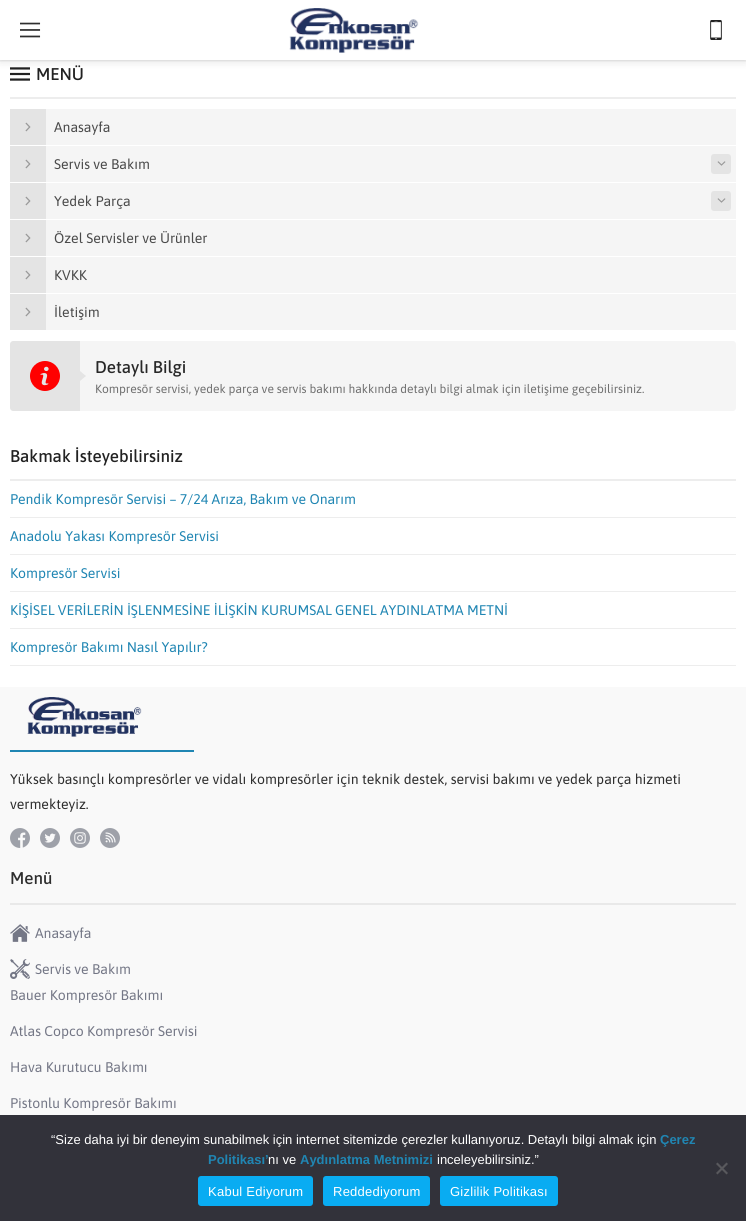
import math
import cairo

surface = cairo.ImageSurface(cairo.FORMAT_RGB24, 746, 1221)
cr = cairo.Context(surface)
options = cairo.FontOptions()
options.set_hint_metrics(cairo.HINT_METRICS_OFF)
options.set_hint_style(cairo.HINT_STYLE_NONE)
cr.set_font_options(options)
cr.set_miter_limit(4)


def rgb(code):
    cr.set_source_rgb(*(v / 255 for v in bytes.fromhex(code[-6:])))


def tracked(x, y, s, letter, word):
    cr.move_to(x, y)
    for ch in s:
        cr.show_text(ch)
        cr.rel_move_to(letter + word * (ch == ' '), 0)


def rrect(x, y, w, h, r):
    cr.new_sub_path()
    for i, (u, v) in enumerate([(x + w - r, y + h - r), (x + r, y + h - r), (x + r, y + r), (x + w - r, y + r)]):
        cr.arc(u, v, r, i * math.pi / 2, (i + 1) * math.pi / 2)
    cr.close_path()


def soft_shadow(x, y, w, h, r, blur, alpha):
    cr.push_group_with_content(cairo.CONTENT_ALPHA)
    cr.set_operator(cairo.OPERATOR_SOURCE)
    for i in range(15, -16, -2):
        e = blur * i / 6
        if min(w, h) + 2 * e > 0:
            cr.set_source_rgba(0, 0, 0, alpha * math.erfc((i - 1) / 8.5) / 2)
            rrect(x - e, y - e, w + 2 * e, h + 2 * e, max(0, min(r + e + blur * .6, min(w, h) / 2 + e)))
            cr.fill()
    cr.mask(cr.pop_group())


def image(path, x, y, w, h):
    cr.save()
    cr.set_source_surface(cairo.ImageSurface.create_from_png(path), x, y)
    cr.rectangle(x, y, w, h)
    cr.fill()
    cr.restore()


rgb("#ffffff")
cr.paint()
image("img/4.png", 10, 67, 20, 14)
rgb("#000000")
soft_shadow(0, 0, 746, 60, 0, 5, 0.15)
rgb("#ffffff")
cr.rectangle(0, 0, 746, 60)
cr.fill()
cr.save()
cr.rectangle(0, 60, 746, 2)
cr.clip()
rgb("#000000")
soft_shadow(0, 0, 746, 60, 0, 1.5, 0.15)
cr.restore()
image("img/1.png", 289, 8, 130, 45)
image("img/2.png", 20, 22, 21, 16)
image("img/3.png", 710, 20, 12, 20)
for x, y, w, h, color in [
    (10, 97, 726, 2, "#ededed"),
    (46, 109, 690, 36, "#f5f5f5"),
    (10, 109, 36, 36, "#e4e4e4"),
]:
    rgb(color)
    cr.rectangle(x, y, w, h)
    cr.fill()
image("img/5.png", 25, 122, 6, 10)
rgb("#f5f5f5")
cr.rectangle(46, 146, 690, 36)
cr.fill()
rgb("#e4e4e4")
cr.rectangle(10, 146, 36, 36)
cr.fill()
image("img/5.png", 25, 159, 6, 10)
rrect(711, 154, 20, 20, 3)
cr.fill()
image("img/6.png", 717, 161, 9, 5)
rgb("#f5f5f5")
cr.rectangle(46, 183, 690, 36)
cr.fill()
rgb("#e4e4e4")
cr.rectangle(10, 183, 36, 36)
cr.fill()
image("img/5.png", 25, 196, 6, 10)
rrect(711, 191, 20, 20, 3)
cr.fill()
image("img/6.png", 717, 198, 9, 5)
rgb("#f5f5f5")
cr.rectangle(46, 220, 690, 36)
cr.fill()
rgb("#e4e4e4")
cr.rectangle(10, 220, 36, 36)
cr.fill()
image("img/5.png", 25, 233, 6, 10)
rgb("#f5f5f5")
cr.rectangle(46, 257, 690, 36)
cr.fill()
rgb("#e4e4e4")
cr.rectangle(10, 257, 36, 36)
cr.fill()
image("img/5.png", 25, 270, 6, 10)
rgb("#f5f5f5")
cr.rectangle(46, 294, 690, 36)
cr.fill()
rgb("#e4e4e4")
cr.rectangle(10, 294, 36, 36)
cr.fill()
image("img/5.png", 25, 307, 6, 10)
cr.new_path()
cr.move_to(13, 341)
cr.line_to(80, 341)
cr.line_to(80, 411)
cr.line_to(13, 411)
cr.curve_to(11.5, 411, 10, 409.5, 10, 408)
cr.line_to(10, 344)
cr.curve_to(10, 342.5, 11.5, 341, 13, 341)
cr.close_path()
cr.fill()
rgb("#f5f5f5")
cr.new_path()
cr.move_to(80, 341)
cr.line_to(733, 341)
cr.curve_to(734.5, 341, 736, 342.5, 736, 344)
cr.line_to(736, 408)
cr.curve_to(736, 409.5, 734.5, 411, 733, 411)
cr.line_to(80, 411)
cr.close_path()
cr.fill()
image("img/7.png", 30, 361, 30, 30)
rgb("#e4e4e4")
cr.new_path()
cr.move_to(80, 381)
cr.line_to(80, 371)
cr.line_to(86, 376)
cr.close_path()
cr.fill()
for x, y, w, h, color in [
    (10, 479, 726, 2, "#ededed"),
    (10, 517, 726, 1, "#ededed"),
    (10, 554, 726, 1, "#ededed"),
    (10, 591, 726, 1, "#ededed"),
    (10, 628, 726, 1, "#ededed"),
    (10, 665, 726, 1, "#ededed"),
    (0, 687, 746, 428, "#f9f9f9"),
]:
    rgb(color)
    cr.rectangle(x, y, w, h)
    cr.fill()
image("img/8.png", 27, 697, 115, 40)
rgb("#2086b3")
cr.rectangle(10, 750, 184, 2)
cr.fill()
image("img/9.png", 10, 828, 20, 20)
image("img/10.png", 40, 828, 20, 20)
image("img/11.png", 70, 828, 20, 20)
image("img/12.png", 100, 828, 20, 20)
rgb("#e9e9e9")
cr.rectangle(10, 903, 726, 2)
cr.fill()
image("img/13.png", 10, 924, 20, 18)
image("img/14.png", 10, 959, 20, 20)
rgb("#32323a")
cr.rectangle(0, 1115, 746, 106)
cr.fill()
rgb("#59595d")
cr.new_path()
cr.move_to(726.5, 1162.5)
cr.line_to(728, 1164)
cr.line_to(717.5, 1174.5)
cr.line_to(716, 1173)
cr.close_path()
cr.fill()
cr.new_path()
cr.move_to(716, 1164)
cr.line_to(717.5, 1162.5)
cr.line_to(728, 1173)
cr.line_to(726.5, 1174.5)
cr.close_path()
cr.fill()
rgb("#09acf2")
rrect(198, 1176, 115, 30, 3)
cr.fill()
rrect(323, 1176, 107, 30, 3)
cr.fill()
rrect(440, 1176, 118, 30, 3)
cr.fill()
cr.select_font_face("Asap Medium")
cr.set_font_size(17)
rgb("#222222")
cr.move_to(36, 80)
cr.show_text("MENÜ")
cr.select_font_face("Asap")
cr.set_font_size(14)
rgb("#4a4a4a")
for x, y, s in [
    (54, 132, "Anasayfa"),
    (54, 169, "Servis ve Bakım"),
    (54, 206, "Yedek Parça"),
    (54, 243, "Özel Servisler ve Ürünler"),
    (54, 280, "KVKK"),
    (54, 317, "İletişim"),
]:
    cr.move_to(x, y)
    cr.show_text(s)
cr.select_font_face("Asap Medium")
cr.set_font_size(17)
rgb("#282828")
cr.move_to(95, 373)
cr.show_text("Detaylı Bilgi")
cr.select_font_face("Asap")
cr.set_font_size(12)
rgb("#707070")
cr.move_to(95, 393)
cr.show_text("Kompresör servisi, yedek parça ve servis bakımı hakkında detaylı bilgi almak için iletişime geçebilirsiniz.")
cr.select_font_face("Asap Medium")
cr.set_font_size(17)
rgb("#222222")
cr.move_to(10, 462)
cr.show_text("Bakmak İsteyebilirsiniz")
cr.select_font_face("Asap")
cr.set_font_size(14)
rgb("#2086b3")
for x, y, s in [
    (10, 504, "Pendik Kompresör Servisi – 7/24 Arıza, Bakım ve Onarım"),
    (10, 541, "Anadolu Yakası Kompresör Servisi"),
    (10, 578, "Kompresör Servisi"),
    (10, 615, "KİŞİSEL VERİLERİN İŞLENMESİNE İLİŞKİN KURUMSAL GENEL AYDINLATMA METNİ"),
    (10, 652, "Kompresör Bakımı Nasıl Yapılır?"),
]:
    cr.move_to(x, y)
    cr.show_text(s)
rgb("#2e2e2e")
cr.move_to(10, 784)
cr.show_text("Yüksek basınçlı kompresörler ve vidalı kompresörler için teknik destek, servisi bakımı ve yedek parça hizmeti")
cr.move_to(10, 809)
cr.show_text("vermekteyiz.")
cr.select_font_face("Asap Medium")
cr.set_font_size(17)
cr.move_to(10, 884)
cr.show_text("Menü")
cr.select_font_face("Asap")
cr.set_font_size(14)
rgb("#747786")
for x, y, s in [
    (35, 938, "Anasayfa"),
    (35, 974, "Servis ve Bakım"),
    (10, 1000, "Bauer Kompresör Bakımı"),
    (10, 1036, "Atlas Copco Kompresör Servisi"),
    (10, 1072, "Hava Kurutucu Bakımı"),
    (10, 1108, "Pistonlu Kompresör Bakımı"),
]:
    cr.move_to(x, y)
    cr.show_text(s)
cr.select_font_face("Liberation Sans")
cr.set_font_size(13)
rgb("#ffffff")
cr.move_to(51, 1144)
cr.show_text("“Size daha iyi bir deneyim sunabilmek için internet sitemizde çerezler kullanıyoruz. Detaylı bilgi almak için")
cr.select_font_face("Liberation Sans", cairo.FONT_SLANT_NORMAL, cairo.FONT_WEIGHT_BOLD)
rgb("#2086b3")
cr.move_to(660, 1144)
cr.show_text("Çerez")
cr.move_to(208, 1164)
cr.show_text("Politikası’")
cr.select_font_face("Liberation Sans")
rgb("#ffffff")
cr.move_to(268, 1164)
cr.show_text("nı ve")
cr.select_font_face("Liberation Sans", cairo.FONT_SLANT_NORMAL, cairo.FONT_WEIGHT_BOLD)
rgb("#2086b3")
cr.move_to(300, 1164)
cr.show_text("Aydınlatma Metnimizi")
cr.select_font_face("Liberation Sans")
rgb("#ffffff")
cr.move_to(437, 1164)
cr.show_text("inceleyebilirsiniz.”")
for x, y, s in [
    (208, 1196, "Kabul Ediyorum"),
    (333, 1196, "Reddediyorum"),
    (450, 1196, "Gizlilik Politikası"),
]:
    tracked(x, y, s, 0.25, 0)
surface.write_to_png("page.png")
